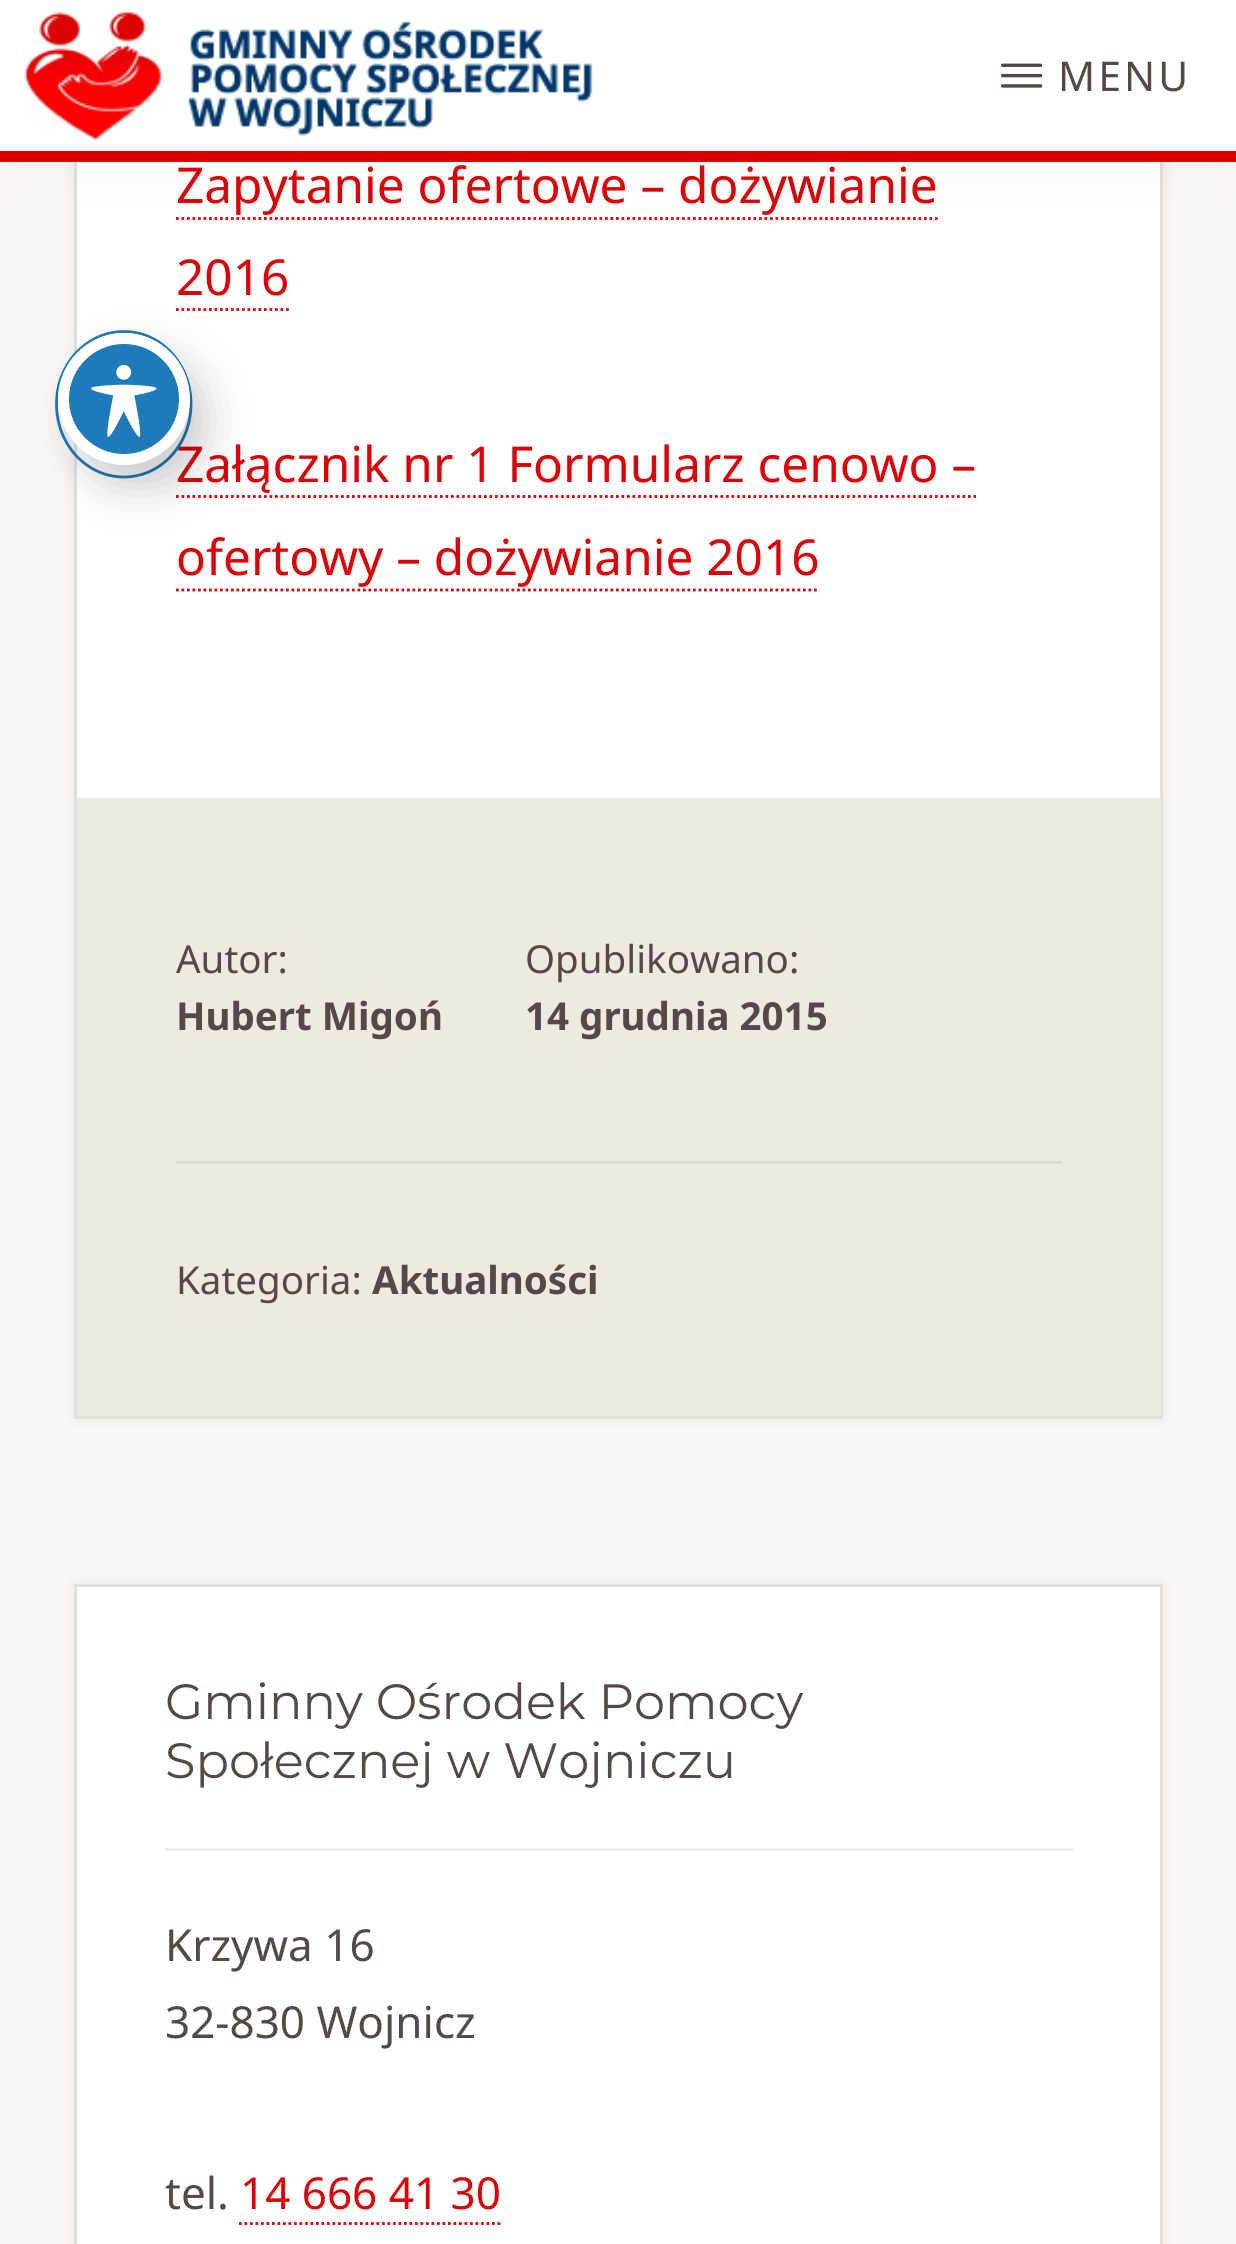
import math
import cairo

surface = cairo.ImageSurface(cairo.FORMAT_RGB24, 1236, 2244)
cr = cairo.Context(surface)
options = cairo.FontOptions()
options.set_hint_metrics(cairo.HINT_METRICS_OFF)
options.set_hint_style(cairo.HINT_STYLE_NONE)
cr.set_font_options(options)
cr.set_miter_limit(4)


def rgb(code):
    cr.set_source_rgb(*(v / 255 for v in bytes.fromhex(code[-6:])))


def tracked(x, y, s, letter, word):
    cr.move_to(x, y)
    for ch in s:
        cr.show_text(ch)
        cr.rel_move_to(letter + word * (ch == ' '), 0)


def rrect(x, y, w, h, r):
    cr.new_sub_path()
    for i, (u, v) in enumerate([(x + w - r, y + h - r), (x + r, y + h - r), (x + r, y + r), (x + w - r, y + r)]):
        cr.arc(u, v, r, i * math.pi / 2, (i + 1) * math.pi / 2)
    cr.close_path()


def soft_shadow(x, y, w, h, r, blur, alpha):
    cr.push_group_with_content(cairo.CONTENT_ALPHA)
    cr.set_operator(cairo.OPERATOR_SOURCE)
    for i in range(15, -16, -2):
        e = blur * i / 6
        if min(w, h) + 2 * e > 0:
            cr.set_source_rgba(0, 0, 0, alpha * math.erfc((i - 1) / 8.5) / 2)
            rrect(x - e, y - e, w + 2 * e, h + 2 * e, max(0, min(r + e + blur * .6, min(w, h) / 2 + e)))
            cr.fill()
    cr.mask(cr.pop_group())


def image(path, x, y, w, h):
    cr.save()
    cr.set_source_surface(cairo.ImageSurface.create_from_png(path), x, y)
    cr.rectangle(x, y, w, h)
    cr.fill()
    cr.restore()


rgb("#faf7f4")
cr.paint()
rgb("#000000")
soft_shadow(74, -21, 1089, 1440, 0, 7, 0.07)
rgb("#ffffff")
cr.rectangle(77, 162, 1083, 636)
cr.fill()
cr.rectangle(75.5, -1.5, 1086, 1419)
rgb("#e0e0e0")
cr.set_line_width(3)
cr.stroke()
cr.new_path()
cr.move_to(176, 218.5)
cr.line_to(938, 218.5)
rgb("#dc0004")
cr.set_line_width(2.8)
cr.set_dash([2.75, 2.75])
cr.stroke()
rgb("#000000")
soft_shadow(0, 0, 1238, 162, 0, 27.5, 0.05)
rgb("#ffffff")
cr.rectangle(0, 0, 1236, 151)
cr.fill()
rgb("#dc0004")
cr.rectangle(0, 151, 1236, 11)
cr.fill()
image("img/2.png", 23, 10, 570, 130)
image("img/3.png", 1001, 63, 42, 25)
cr.new_path()
cr.move_to(176, 309.5)
cr.line_to(289, 309.5)
cr.stroke()
cr.new_path()
cr.move_to(176, 496.5)
cr.line_to(976, 496.5)
cr.stroke()
cr.new_path()
cr.move_to(176, 590)
cr.line_to(819.5, 590)
cr.stroke()
rgb("#eee9e3")
cr.rectangle(77, 798, 1084, 618)
cr.fill()
rgb("#ddd9d3")
cr.rectangle(176, 1161, 886, 3)
cr.fill()
rgb("#000000")
soft_shadow(74, 1584, 1089, 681, 0, 7, 0.07)
rgb("#ffffff")
cr.rectangle(75.5, 1585.5, 1086, 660)
cr.fill_preserve()
rgb("#e0e0e0")
cr.set_line_width(3)
cr.set_dash([])
cr.stroke()
rgb("#ededed")
cr.rectangle(165, 1848, 908, 3)
cr.fill()
cr.new_path()
cr.move_to(239, 2223.5)
cr.line_to(500.5, 2223.5)
rgb("#dc0004")
cr.set_line_width(2.8)
cr.set_dash([2.75, 2.75])
cr.stroke()
cr.select_font_face("Noto Sans")
cr.set_font_size(41)
rgb("#554948")
tracked(1058, 91, "MENU", 3, 0)
cr.set_font_size(49.5)
rgb("#dc0004")
for x, y, s in [
    (176, 203, "Zapytanie ofertowe – dożywianie"),
    (176, 295, "2016"),
    (176, 482, "Załącznik nr 1 Formularz cenowo –"),
]:
    cr.move_to(x, y)
    cr.show_text(s)
cr.new_path()
cr.move_to(124, 331.5)
cr.curve_to(161, 331.5, 191, 364, 191, 404)
cr.curve_to(191, 444.5, 161, 477, 124, 477)
cr.curve_to(86.5, 477, 56.5, 444.5, 56.5, 404)
cr.curve_to(56.5, 364, 86.5, 331.5, 124, 331.5)
cr.close_path()
rgb("#1e7ab9")
cr.set_dash([])
cr.stroke()
rgb("#000000")
soft_shadow(74, 355, 132, 132, 66, 22, 0.2)
rgb("#1e7ab9")
cr.arc(124, 399, 60.5, 0, 2 * math.pi)
cr.fill_preserve()
rgb("#ffffff")
cr.set_line_width(11)
cr.stroke()
image("img/1.png", 91, 364, 66, 73)
rgb("#dc0004")
cr.move_to(176, 575)
cr.show_text("ofertowy – dożywianie 2016")
cr.set_font_size(38.5)
rgb("#554948")
cr.move_to(176, 973)
cr.show_text("Autor:")
cr.select_font_face("Noto Sans", cairo.FONT_SLANT_NORMAL, cairo.FONT_WEIGHT_BOLD)
cr.move_to(176, 1030)
cr.show_text("Hubert Migoń")
cr.select_font_face("Noto Sans")
cr.move_to(525, 973)
cr.show_text("Opublikowano:")
cr.select_font_face("Noto Sans", cairo.FONT_SLANT_NORMAL, cairo.FONT_WEIGHT_BOLD)
cr.move_to(525, 1030)
cr.show_text("14 grudnia 2015")
cr.select_font_face("Noto Sans")
cr.move_to(176, 1294)
cr.show_text("Kategoria:")
cr.select_font_face("Noto Sans", cairo.FONT_SLANT_NORMAL, cairo.FONT_WEIGHT_BOLD)
cr.move_to(372, 1294)
cr.show_text("Aktualności")
cr.select_font_face("Montserrat")
cr.set_font_size(49.5)
cr.move_to(165, 1719)
cr.show_text("Gminny Ośrodek Pomocy")
cr.move_to(165, 1778)
cr.show_text("Społecznej w Wojniczu")
cr.select_font_face("Noto Sans")
cr.set_font_size(44)
for x, y, s in [
    (165, 1961, "Krzywa 16"),
    (165, 2038, "32-830 Wojnicz"),
    (165, 2209, "tel."),
]:
    cr.move_to(x, y)
    cr.show_text(s)
rgb("#dc0004")
cr.move_to(240, 2209)
cr.show_text("14 666 41 30")
surface.write_to_png("page.png")
